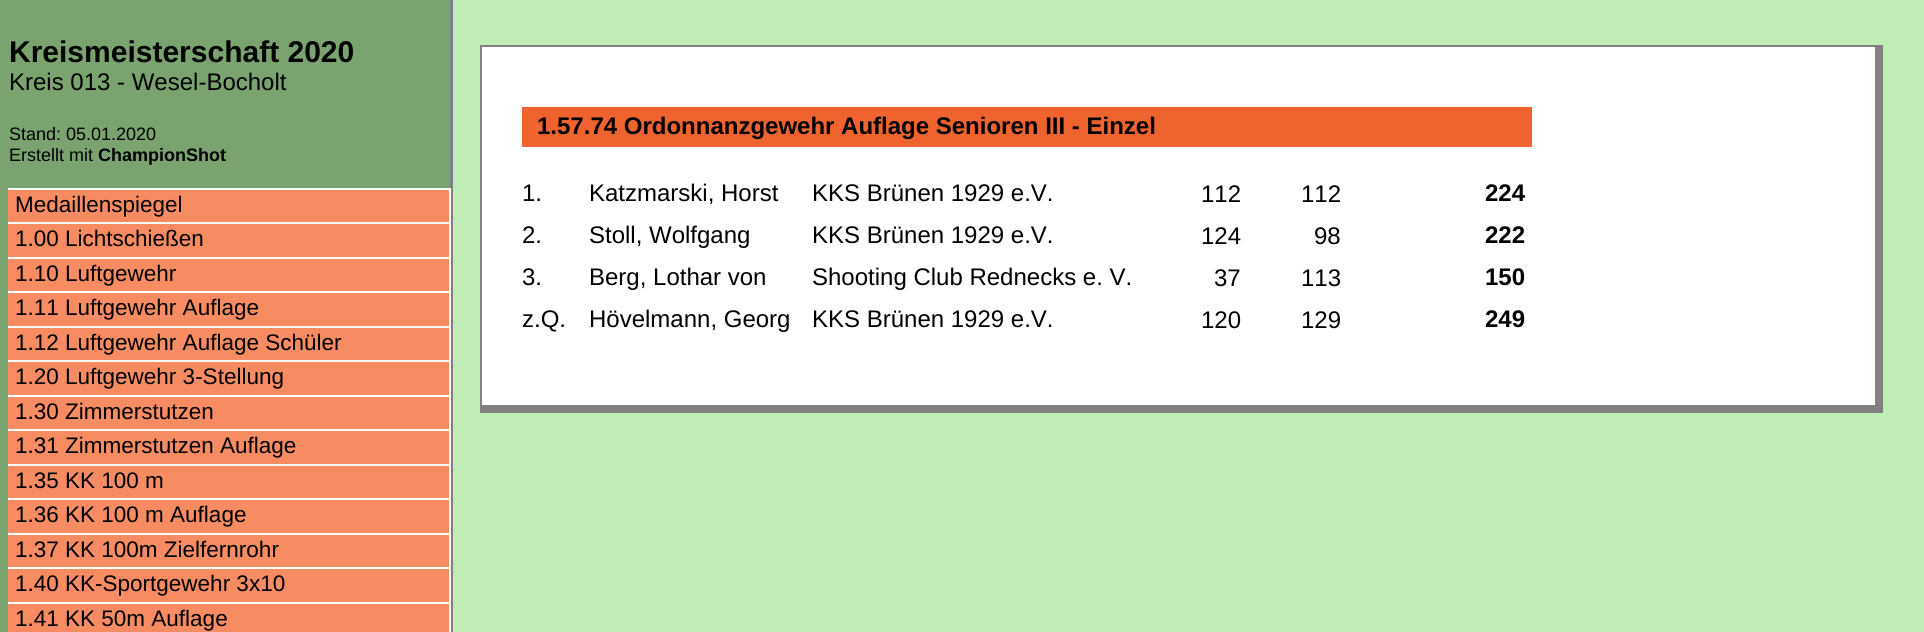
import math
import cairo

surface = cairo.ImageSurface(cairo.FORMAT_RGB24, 1924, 632)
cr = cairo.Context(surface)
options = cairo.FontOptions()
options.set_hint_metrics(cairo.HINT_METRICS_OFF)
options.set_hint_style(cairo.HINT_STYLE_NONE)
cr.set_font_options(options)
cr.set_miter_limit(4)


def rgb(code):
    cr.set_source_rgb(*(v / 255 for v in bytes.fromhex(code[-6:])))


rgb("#c0ecb5")
cr.paint()
for x, y, w, h, color in [
    (0, 0, 450, 632, "#7aa36f"),
    (450, 0, 3, 632, "#808080"),
    (8, 190, 441, 32, "#f78b62"),
    (8, 188, 442, 2, "#ffffff"),
    (449, 188, 2, 34, "#ffffff"),
    (8, 224, 441, 33, "#f78b62"),
    (8, 222, 442, 2, "#ffffff"),
    (449, 222, 2, 35, "#ffffff"),
    (8, 259, 441, 32, "#f78b62"),
    (8, 257, 442, 2, "#ffffff"),
    (449, 257, 2, 34, "#ffffff"),
    (8, 293, 441, 33, "#f78b62"),
    (8, 291, 442, 2, "#ffffff"),
    (449, 291, 2, 35, "#ffffff"),
    (8, 328, 441, 32, "#f78b62"),
    (8, 326, 442, 2, "#ffffff"),
    (449, 326, 2, 34, "#ffffff"),
    (8, 362, 441, 33, "#f78b62"),
    (8, 360, 442, 2, "#ffffff"),
    (449, 360, 2, 35, "#ffffff"),
    (8, 397, 441, 32, "#f78b62"),
    (8, 395, 442, 2, "#ffffff"),
    (449, 395, 2, 34, "#ffffff"),
    (8, 431, 441, 33, "#f78b62"),
    (8, 429, 442, 2, "#ffffff"),
    (449, 429, 2, 35, "#ffffff"),
    (8, 466, 441, 32, "#f78b62"),
    (8, 464, 442, 2, "#ffffff"),
    (449, 464, 2, 34, "#ffffff"),
    (8, 500, 441, 33, "#f78b62"),
    (8, 498, 442, 2, "#ffffff"),
    (449, 498, 2, 35, "#ffffff"),
    (8, 535, 441, 32, "#f78b62"),
    (8, 533, 442, 2, "#ffffff"),
    (449, 533, 2, 34, "#ffffff"),
    (8, 569, 441, 33, "#f78b62"),
    (8, 567, 442, 2, "#ffffff"),
    (449, 567, 2, 35, "#ffffff"),
    (8, 604, 441, 28, "#f78b62"),
    (8, 602, 442, 2, "#ffffff"),
    (449, 602, 2, 30, "#ffffff"),
    (482, 47, 1393, 358, "#ffffff"),
    (480, 45, 1403, 2, "#808080"),
    (1875, 45, 8, 368, "#808080"),
    (480, 405, 1403, 8, "#808080"),
    (480, 45, 2, 368, "#808080"),
    (522, 107, 1010, 40, "#ef632f"),
]:
    rgb(color)
    cr.rectangle(x, y, w, h)
    cr.fill()
cr.select_font_face("Liberation Sans", cairo.FONT_SLANT_NORMAL, cairo.FONT_WEIGHT_BOLD)
cr.set_font_size(30)
rgb("#000000")
cr.move_to(9, 62)
cr.show_text("Kreismeisterschaft 2020")
cr.select_font_face("Liberation Sans")
cr.set_font_size(24)
cr.move_to(9, 90)
cr.show_text("Kreis 013 - Wesel-Bocholt")
cr.set_font_size(18)
cr.move_to(9, 140)
cr.show_text("Stand: 05.01.2020")
cr.move_to(9, 161)
cr.show_text("Erstellt mit")
cr.select_font_face("Liberation Sans", cairo.FONT_SLANT_NORMAL, cairo.FONT_WEIGHT_BOLD)
cr.move_to(98, 161)
cr.show_text("ChampionShot")
cr.select_font_face("Liberation Sans")
cr.set_font_size(22.5)
for x, y, s in [
    (15, 212, "Medaillenspiegel"),
    (15, 246, "1.00 Lichtschießen"),
    (15, 281, "1.10 Luftgewehr"),
    (15, 315, "1.11 Luftgewehr Auflage"),
    (15, 350, "1.12 Luftgewehr Auflage Schüler"),
    (15, 384, "1.20 Luftgewehr 3-Stellung"),
    (15, 419, "1.30 Zimmerstutzen"),
    (15, 453, "1.31 Zimmerstutzen Auflage"),
    (15, 488, "1.35 KK 100 m"),
    (15, 522, "1.36 KK 100 m Auflage"),
    (15, 557, "1.37 KK 100m Zielfernrohr"),
    (15, 591, "1.40 KK-Sportgewehr 3x10"),
    (15, 626, "1.41 KK 50m Auflage"),
]:
    cr.move_to(x, y)
    cr.show_text(s)
cr.select_font_face("Liberation Sans", cairo.FONT_SLANT_NORMAL, cairo.FONT_WEIGHT_BOLD)
cr.set_font_size(24)
cr.move_to(537, 134)
cr.show_text("1.57.74 Ordonnanzgewehr Auflage Senioren III - Einzel")
cr.select_font_face("Liberation Sans")
for x, y, s in [
    (522, 201, "1."),
    (589, 201, "Katzmarski, Horst"),
    (812, 201, "KKS Brünen 1929 e.V."),
    (1201, 202, "112"),
    (1301, 202, "112"),
]:
    cr.move_to(x, y)
    cr.show_text(s)
cr.select_font_face("Liberation Sans", cairo.FONT_SLANT_NORMAL, cairo.FONT_WEIGHT_BOLD)
cr.move_to(1485, 201)
cr.show_text("224")
cr.select_font_face("Liberation Sans")
for x, y, s in [
    (522, 243, "2."),
    (589, 243, "Stoll, Wolfgang"),
    (812, 243, "KKS Brünen 1929 e.V."),
    (1201, 244, "124"),
    (1314, 244, "98"),
]:
    cr.move_to(x, y)
    cr.show_text(s)
cr.select_font_face("Liberation Sans", cairo.FONT_SLANT_NORMAL, cairo.FONT_WEIGHT_BOLD)
cr.move_to(1485, 243)
cr.show_text("222")
cr.select_font_face("Liberation Sans")
for x, y, s in [
    (522, 285, "3."),
    (589, 285, "Berg, Lothar von"),
    (812, 285, "Shooting Club Rednecks e. V."),
    (1214, 286, "37"),
    (1301, 286, "113"),
]:
    cr.move_to(x, y)
    cr.show_text(s)
cr.select_font_face("Liberation Sans", cairo.FONT_SLANT_NORMAL, cairo.FONT_WEIGHT_BOLD)
cr.move_to(1485, 285)
cr.show_text("150")
cr.select_font_face("Liberation Sans")
for x, y, s in [
    (522, 327, "z.Q."),
    (589, 327, "Hövelmann, Georg"),
    (812, 327, "KKS Brünen 1929 e.V."),
    (1201, 328, "120"),
    (1301, 328, "129"),
]:
    cr.move_to(x, y)
    cr.show_text(s)
cr.select_font_face("Liberation Sans", cairo.FONT_SLANT_NORMAL, cairo.FONT_WEIGHT_BOLD)
cr.move_to(1485, 327)
cr.show_text("249")
surface.write_to_png("page.png")
